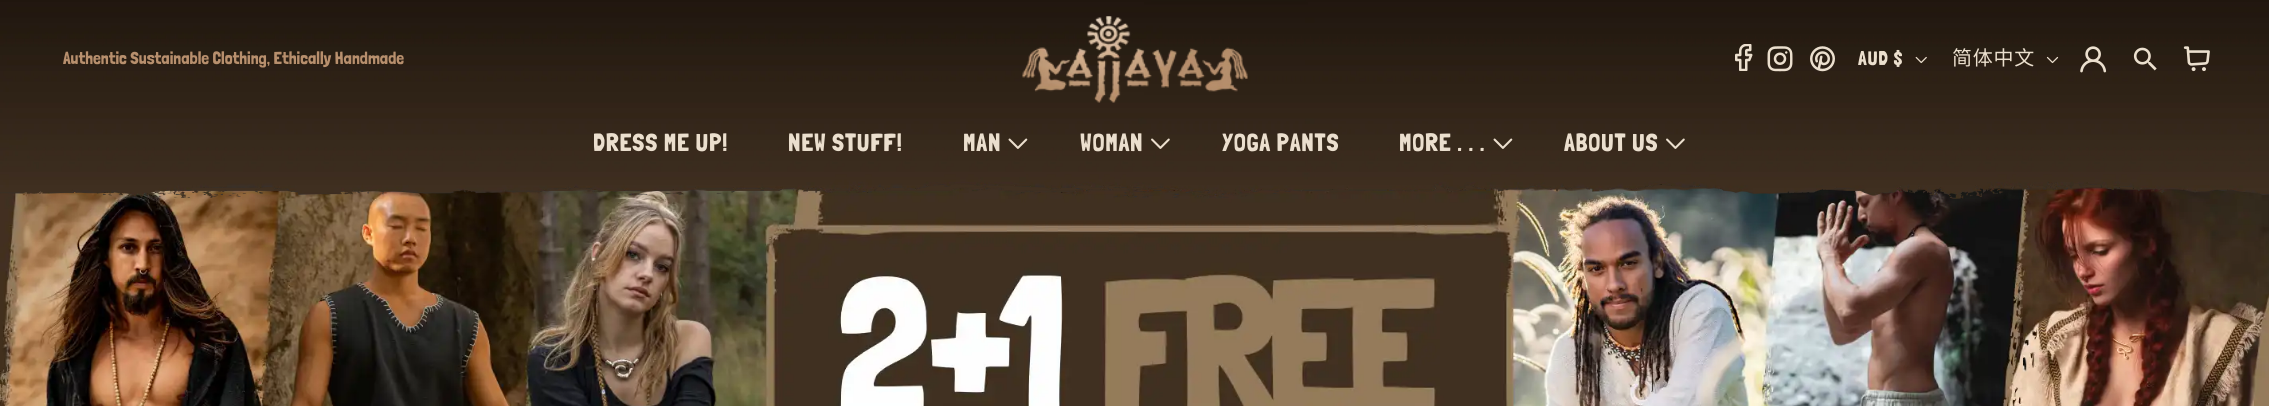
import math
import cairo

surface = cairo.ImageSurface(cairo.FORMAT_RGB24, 2269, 406)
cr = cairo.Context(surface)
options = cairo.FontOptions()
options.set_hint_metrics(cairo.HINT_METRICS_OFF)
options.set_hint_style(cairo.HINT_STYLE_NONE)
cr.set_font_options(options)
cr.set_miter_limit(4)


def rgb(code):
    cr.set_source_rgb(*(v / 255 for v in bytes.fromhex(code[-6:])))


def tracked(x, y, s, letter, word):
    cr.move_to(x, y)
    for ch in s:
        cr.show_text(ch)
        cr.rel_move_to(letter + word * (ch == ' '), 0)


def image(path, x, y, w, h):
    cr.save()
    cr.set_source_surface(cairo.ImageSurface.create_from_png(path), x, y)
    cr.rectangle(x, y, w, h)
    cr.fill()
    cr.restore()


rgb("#403021")
cr.paint()
image("img/15.png", 0, 187, 2269, 219)
image("img/1.png", 0, 0, 2269, 199)
image("img/2.png", 1022, 16, 226, 87)
image("img/3.png", 1735, 44, 18, 27)
image("img/4.png", 1767, 46, 26, 26)
image("img/5.png", 1810, 46, 25, 26)
image("img/6.png", 1915, 56, 12, 8)
image("img/7.png", 2046, 56, 13, 8)
image("img/8.png", 2080, 46, 27, 27)
image("img/9.png", 2133, 47, 24, 24)
image("img/10.png", 2183, 46, 27, 26)
image("img/11.png", 1008, 138, 20, 11)
image("img/12.png", 1151, 138, 19, 11)
image("img/13.png", 1493, 138, 20, 11)
image("img/14.png", 1666, 138, 19, 11)
cr.select_font_face("Londrina Solid")
cr.set_font_size(17.5)
rgb("#b78f6d")
cr.move_to(63, 64)
cr.show_text("Authentic Sustainable Clothing, Ethically Handmade")
cr.set_font_size(20)
rgb("#ebdfce")
tracked(1858, 65, "AUD $", 0.75, 0)
cr.select_font_face("Noto Sans CJK SC")
tracked(1952, 65, "简体中文", 0.75, 0)
cr.select_font_face("Londrina Solid")
cr.set_font_size(25)
for x, y, s in [
    (593, 151, "DRESS ME UP!"),
    (788, 151, "NEW STUFF!"),
    (963, 151, "MAN"),
    (1080, 151, "WOMAN"),
    (1222, 151, "YOGA PANTS"),
    (1399, 151, "MORE . . ."),
    (1564, 151, "ABOUT US"),
]:
    tracked(x, y, s, 0.75, 0)
surface.write_to_png("page.png")
